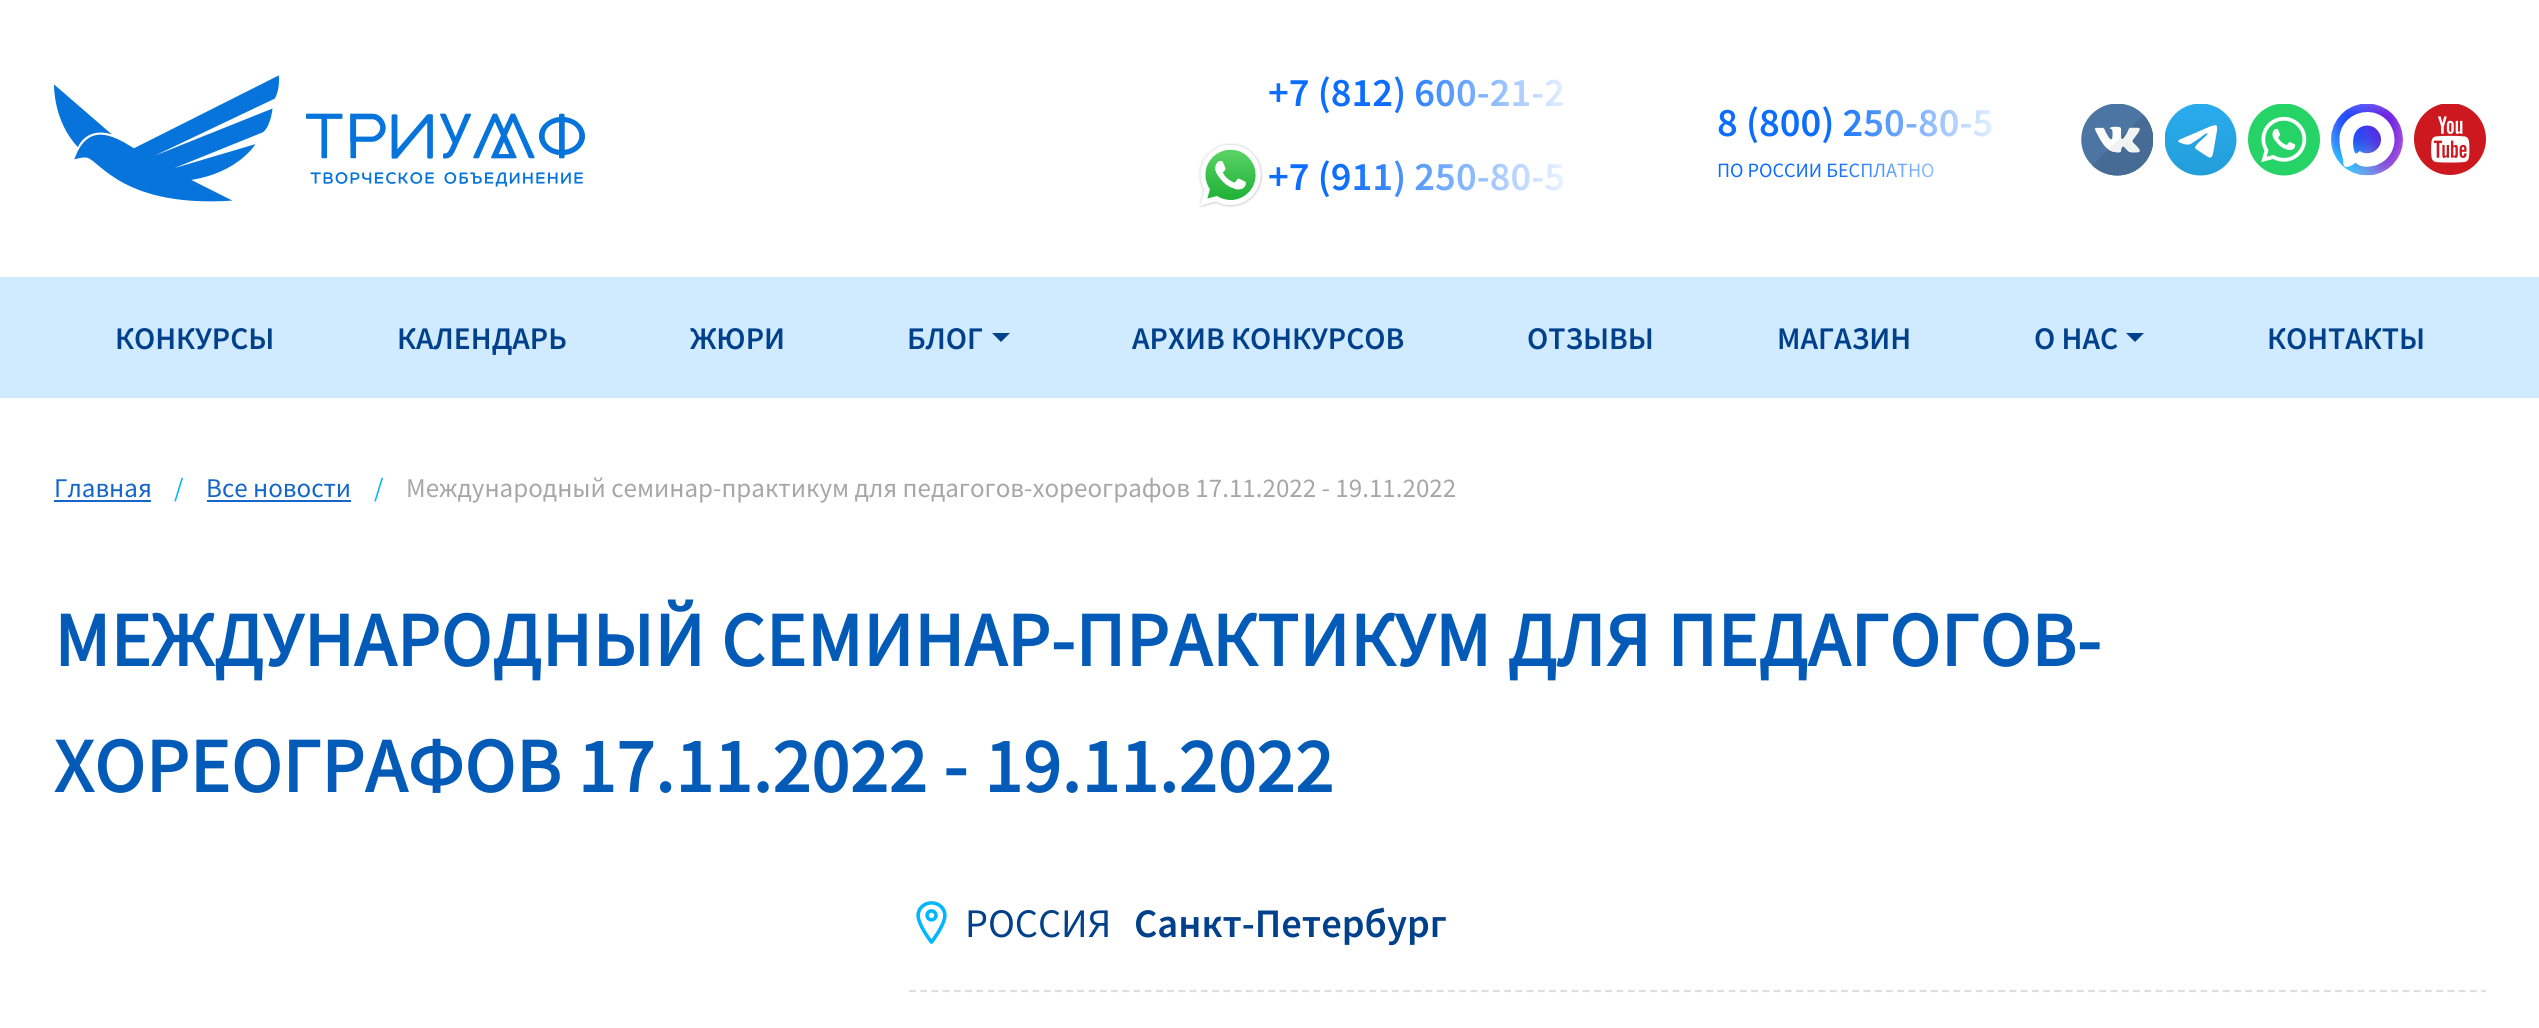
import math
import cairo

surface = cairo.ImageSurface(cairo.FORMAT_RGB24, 2539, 1028)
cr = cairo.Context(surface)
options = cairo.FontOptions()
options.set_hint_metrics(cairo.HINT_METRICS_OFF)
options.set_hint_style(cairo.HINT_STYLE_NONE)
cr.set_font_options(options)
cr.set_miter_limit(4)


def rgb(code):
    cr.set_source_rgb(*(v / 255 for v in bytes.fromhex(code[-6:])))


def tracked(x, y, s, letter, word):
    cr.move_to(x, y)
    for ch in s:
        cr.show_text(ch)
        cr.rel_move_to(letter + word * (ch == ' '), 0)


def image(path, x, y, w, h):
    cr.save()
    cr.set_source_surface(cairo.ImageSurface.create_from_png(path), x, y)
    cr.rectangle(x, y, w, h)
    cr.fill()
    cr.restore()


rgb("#ffffff")
cr.paint()
image("img/1.png", 54, 75, 531, 127)
image("img/2.png", 1198, 143, 65, 65)
image("img/3.png", 2081, 104, 72, 72)
cr.save()
cr.rectangle(2165, 104, 72, 72)
cr.clip()
gradient = cairo.LinearGradient(2200, 104, 2200, 175)
gradient.add_color_stop_rgba(0, 0.165, 0.671, 0.933, 1)
gradient.add_color_stop_rgba(1, 0.133, 0.62, 0.851, 1)
cr.set_source(gradient)
cr.arc(2200.5, 139.5, 36, 0, 2 * math.pi)
cr.fill()
cr.restore()
rgb("#ffffff")
cr.set_fill_rule(cairo.FILL_RULE_EVEN_ODD)
cr.new_path()
cr.move_to(2181, 139)
cr.line_to(2210, 126.5)
cr.curve_to(2216.5, 124.5, 2217.5, 124, 2217, 130.5)
cr.line_to(2213.5, 151)
cr.curve_to(2212, 159, 2211, 159, 2205, 155)
cr.curve_to(2203, 153.5, 2196, 149.5, 2195, 148)
cr.curve_to(2194, 145, 2208, 135.5, 2207.5, 133.5)
cr.curve_to(2207, 132, 2201.5, 136.5, 2200.5, 137.5)
cr.line_to(2191.5, 143.5)
cr.curve_to(2188, 145.5, 2185, 144.5, 2181, 143)
cr.curve_to(2177.5, 142, 2177, 140.5, 2181, 139)
cr.close_path()
cr.fill()
image("img/4.png", 2248, 104, 72, 72)
image("img/5.png", 2331, 104, 72, 72)
image("img/6.png", 2414, 104, 72, 71)
rgb("#d0eaff")
cr.rectangle(0, 277, 2539, 121)
cr.fill()
rgb("#01408a")
cr.set_fill_rule(cairo.FILL_RULE_WINDING)
cr.new_path()
cr.move_to(992, 333)
cr.line_to(1010, 333)
cr.line_to(1001, 342)
cr.close_path()
cr.fill()
cr.new_path()
cr.move_to(2126, 333)
cr.line_to(2144, 333)
cr.line_to(2135, 342)
cr.close_path()
cr.fill()
rgb("#1466c7")
cr.rectangle(54, 500, 97, 2)
cr.fill()
cr.rectangle(207, 500, 144, 2)
cr.fill()
cr.new_path()
cr.move_to(909, 991)
cr.line_to(2486, 991)
rgb("#dddee0")
cr.set_line_width(2.2)
cr.set_dash([6.75, 4.48])
cr.stroke()
image("img/7.png", 916, 901, 31, 43)
cr.select_font_face("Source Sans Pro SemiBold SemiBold")
cr.set_font_size(40.5)
gradient = cairo.LinearGradient(1268, 91, 1586, 91)
gradient.add_color_stop_rgba(0, 0.051, 0.431, 0.992, 1)
gradient.add_color_stop_rgba(0.38, 0.051, 0.431, 0.992, 1)
gradient.add_color_stop_rgba(1, 1, 1, 1, 1)
cr.set_source(gradient)
cr.move_to(1268, 106)
cr.show_text("+7 (812) 600-21-2")
gradient = cairo.LinearGradient(1194, 176, 1586, 176)
gradient.add_color_stop_rgba(0, 0.051, 0.431, 0.992, 1)
gradient.add_color_stop_rgba(0.38, 0.051, 0.431, 0.992, 1)
gradient.add_color_stop_rgba(1, 1, 1, 1, 1)
cr.set_source(gradient)
cr.move_to(1268, 190)
cr.show_text("+7 (911) 250-80-5")
gradient = cairo.LinearGradient(1717, 138, 2014, 138)
gradient.add_color_stop_rgba(0, 0.051, 0.431, 0.992, 1)
gradient.add_color_stop_rgba(0.38, 0.051, 0.431, 0.992, 1)
gradient.add_color_stop_rgba(1, 1, 1, 1, 1)
cr.set_source(gradient)
cr.move_to(1717, 136)
cr.show_text("8 (800) 250-80-5")
cr.select_font_face("Source Sans Pro")
cr.set_font_size(20.25)
cr.move_to(1717, 177)
cr.show_text("ПО РОССИИ БЕСПЛАТНО")
cr.select_font_face("Source Sans Pro SemiBold SemiBold")
cr.set_font_size(31.5)
rgb("#01408a")
for x, y, s in [
    (115, 349, "КОНКУРСЫ"),
    (397, 349, "КАЛЕНДАРЬ"),
    (690, 349, "ЖЮРИ"),
    (907, 349, "БЛОГ"),
    (1132, 349, "АРХИВ КОНКУРСОВ"),
    (1527, 349, "ОТЗЫВЫ"),
    (1777, 349, "МАГАЗИН"),
    (2034, 349, "О НАС"),
    (2267, 349, "КОНТАКТЫ"),
]:
    cr.move_to(x, y)
    cr.show_text(s)
cr.select_font_face("Source Sans Pro")
cr.set_font_size(27)
rgb("#1466c7")
cr.move_to(54, 497)
cr.show_text("Главная")
rgb("#00b7ff")
cr.move_to(174, 497)
cr.show_text("/")
rgb("#1466c7")
cr.move_to(206, 497)
cr.show_text("Все новости")
rgb("#00b7ff")
cr.move_to(374, 497)
cr.show_text("/")
rgb("#a7a7a7")
cr.move_to(406, 497)
cr.show_text("Международный семинар-практикум для педагогов-хореографов 17.11.2022 - 19.11.2022")
cr.select_font_face("Source Sans Pro", cairo.FONT_SLANT_NORMAL, cairo.FONT_WEIGHT_BOLD)
cr.set_font_size(76.5)
rgb("#035bb7")
tracked(54, 666, "МЕЖДУНАРОДНЫЙ СЕМИНАР-ПРАКТИКУМ ДЛЯ ПЕДАГОГОВ-", 0.75, 0)
tracked(54, 792, "ХОРЕОГРАФОВ 17.11.2022 - 19.11.2022", 0.75, 0)
cr.select_font_face("Source Sans Pro")
cr.set_font_size(40.5)
rgb("#01408a")
cr.move_to(965, 937)
cr.show_text("РОССИЯ")
cr.select_font_face("Source Sans Pro SemiBold SemiBold")
cr.move_to(1134, 937)
cr.show_text("Санкт-Петербург")
surface.write_to_png("page.png")
